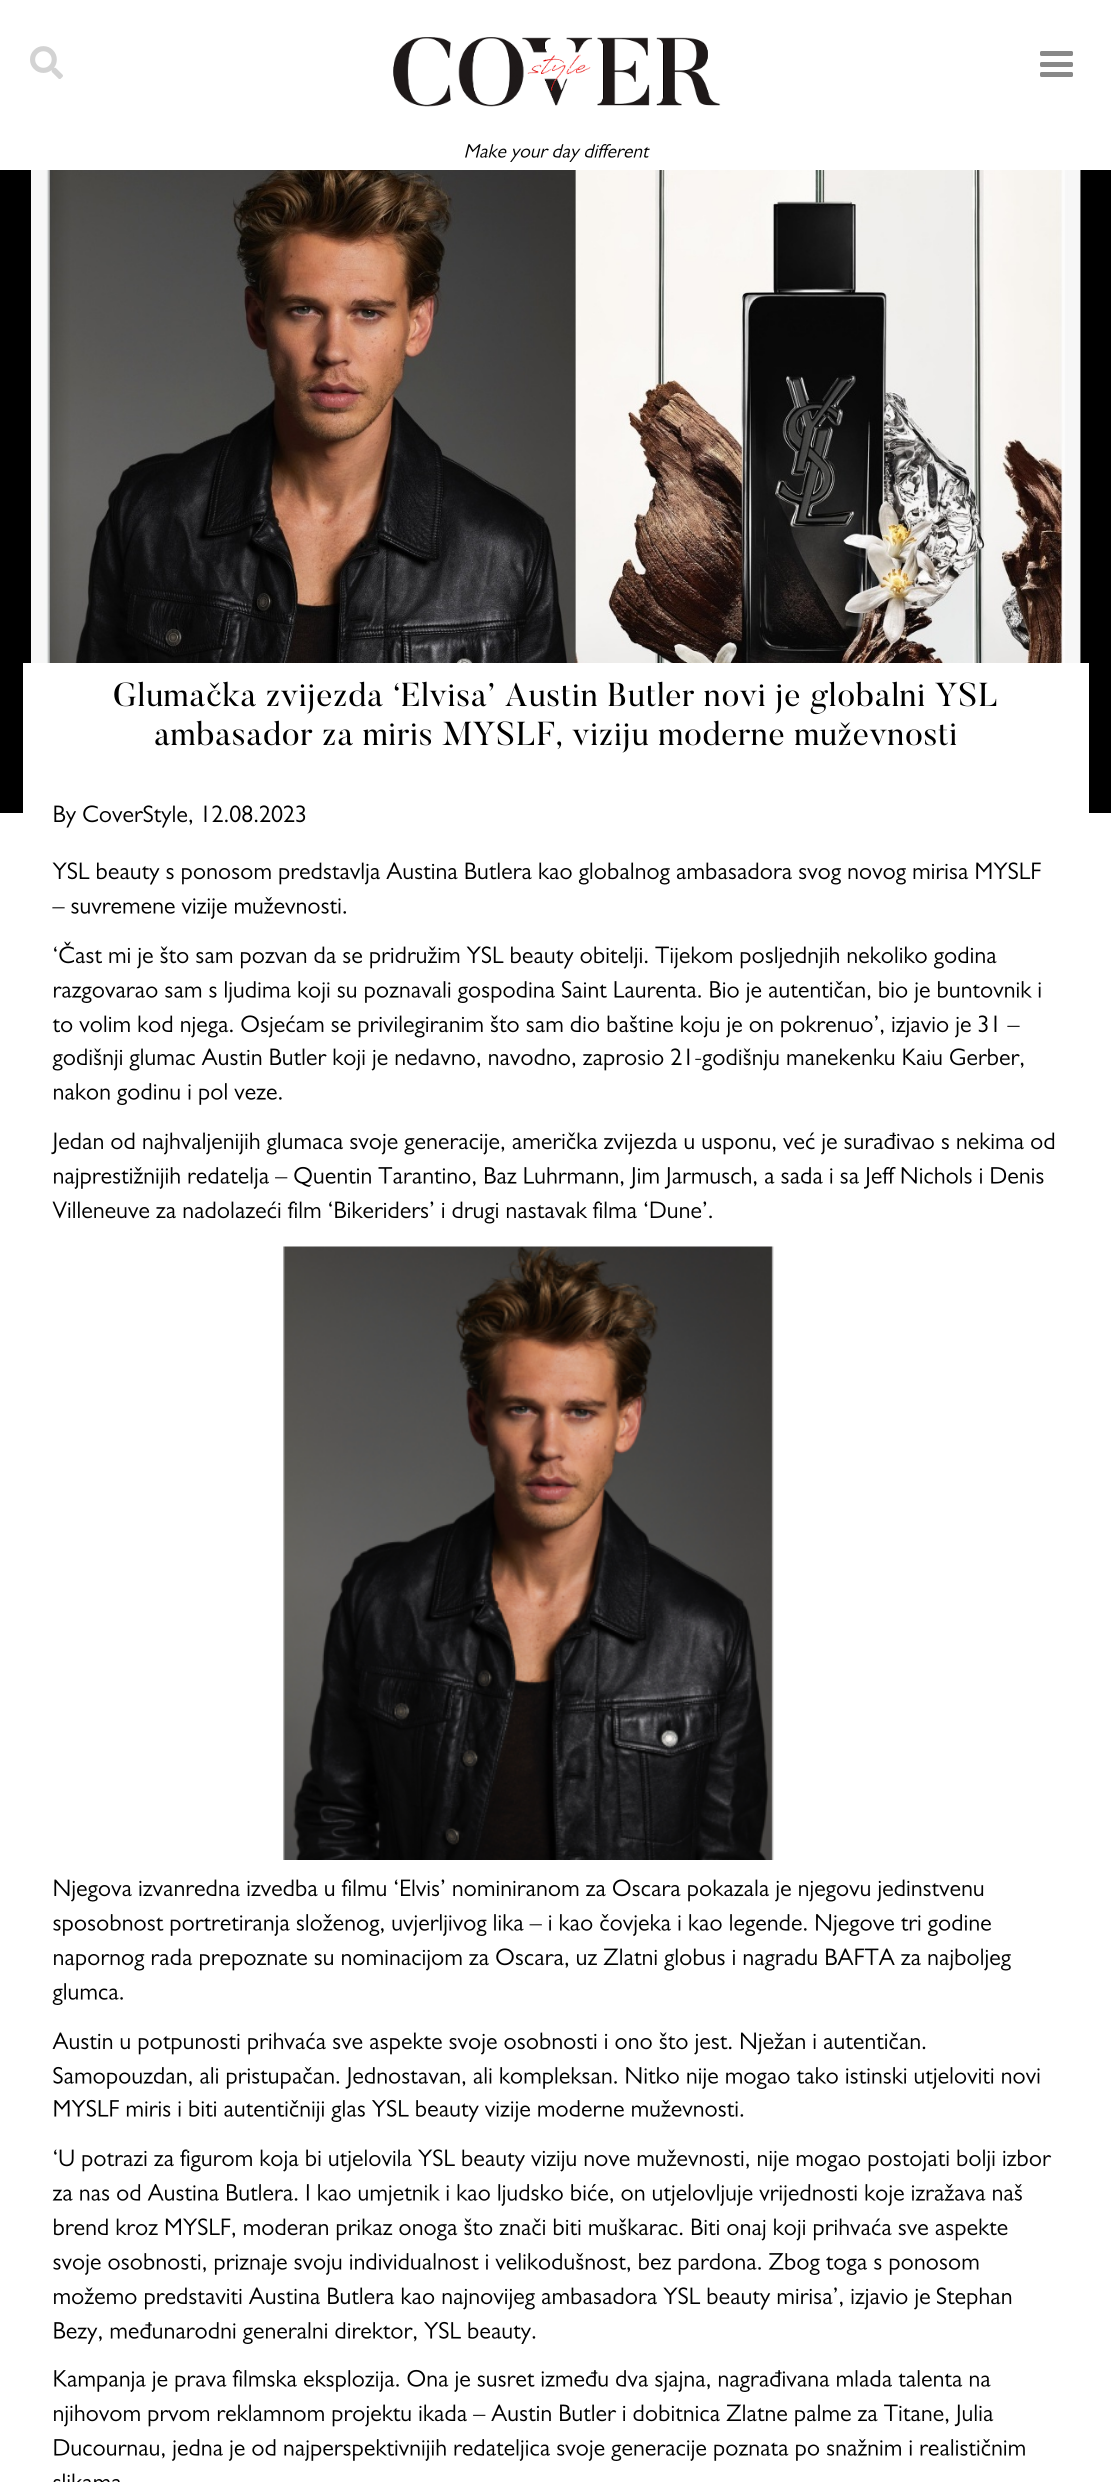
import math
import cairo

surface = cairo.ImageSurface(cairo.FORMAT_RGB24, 1111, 2482)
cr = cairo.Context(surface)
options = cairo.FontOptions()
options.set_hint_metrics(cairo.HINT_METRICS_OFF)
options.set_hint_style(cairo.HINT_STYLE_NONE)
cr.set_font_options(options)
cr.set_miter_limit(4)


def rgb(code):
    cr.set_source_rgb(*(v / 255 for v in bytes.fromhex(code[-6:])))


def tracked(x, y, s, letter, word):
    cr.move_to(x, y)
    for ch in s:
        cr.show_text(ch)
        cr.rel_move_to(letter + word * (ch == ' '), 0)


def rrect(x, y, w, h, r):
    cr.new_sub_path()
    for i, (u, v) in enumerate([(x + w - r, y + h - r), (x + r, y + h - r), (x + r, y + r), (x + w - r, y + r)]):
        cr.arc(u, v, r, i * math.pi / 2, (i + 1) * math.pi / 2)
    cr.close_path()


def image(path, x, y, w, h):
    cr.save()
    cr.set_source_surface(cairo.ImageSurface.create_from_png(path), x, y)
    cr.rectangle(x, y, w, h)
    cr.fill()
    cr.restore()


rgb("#ffffff")
cr.paint()
rgb("#888888")
rrect(1040, 51, 33, 5, 1.5)
cr.fill()
rrect(1040, 62, 33, 5, 1.5)
cr.fill()
rrect(1040, 72, 33, 5, 1.5)
cr.fill()
image("img/1.png", 30, 46, 33, 33)
image("img/2.png", 393, 37, 328, 70)
image("img/3.png", 465, 144, 185, 18)
image("img/4.png", 0, 170, 1111, 643)
rgb("#ffffff")
cr.rectangle(23, 663, 1066, 150)
cr.fill()
image("img/5.png", 54, 805, 139, 23)
image("img/6.png", 204, 805, 102, 18)
image("img/7.png", 52, 862, 989, 23)
image("img/8.png", 52, 897, 294, 22)
image("img/9.png", 54, 941, 943, 28)
image("img/10.png", 54, 980, 987, 23)
image("img/11.png", 52, 1015, 968, 23)
image("img/12.png", 52, 1048, 843, 23)
image("img/13.png", 903, 1048, 121, 20)
image("img/14.png", 54, 1083, 228, 22)
image("img/15.png", 51, 1132, 1004, 23)
image("img/16.png", 54, 1166, 990, 23)
image("img/17.png", 52, 1201, 660, 23)
image("img/18.png", 283, 1246, 491, 614)
image("img/19.png", 54, 1879, 930, 23)
image("img/20.png", 53, 1914, 938, 22)
image("img/21.png", 54, 1948, 957, 23)
image("img/22.png", 52, 1983, 71, 22)
image("img/23.png", 52, 2032, 874, 23)
image("img/24.png", 53, 2066, 987, 23)
image("img/25.png", 54, 2099, 690, 23)
image("img/26.png", 54, 2149, 998, 23)
image("img/27.png", 52, 2184, 970, 22)
image("img/28.png", 54, 2218, 954, 23)
image("img/29.png", 53, 2253, 926, 22)
image("img/30.png", 54, 2287, 876, 23)
image("img/31.png", 937, 2287, 75, 23)
image("img/32.png", 54, 2322, 44, 22)
image("img/33.png", 99, 2321, 437, 23)
image("img/34.png", 54, 2369, 937, 23)
image("img/35.png", 54, 2404, 940, 23)
image("img/36.png", 54, 2439, 971, 22)
image("img/37.png", 53, 2473, 67, 9)
cr.select_font_face("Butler")
cr.set_font_size(33)
rgb("#000000")
tracked(113, 706, "Glumačka zvijezda ‘Elvisa’ Austin Butler novi je globalni YSL", 0.75, 0)
tracked(154, 745, "ambasador za miris MYSLF, viziju moderne muževnosti", 0.75, 0)
surface.write_to_png("page.png")
